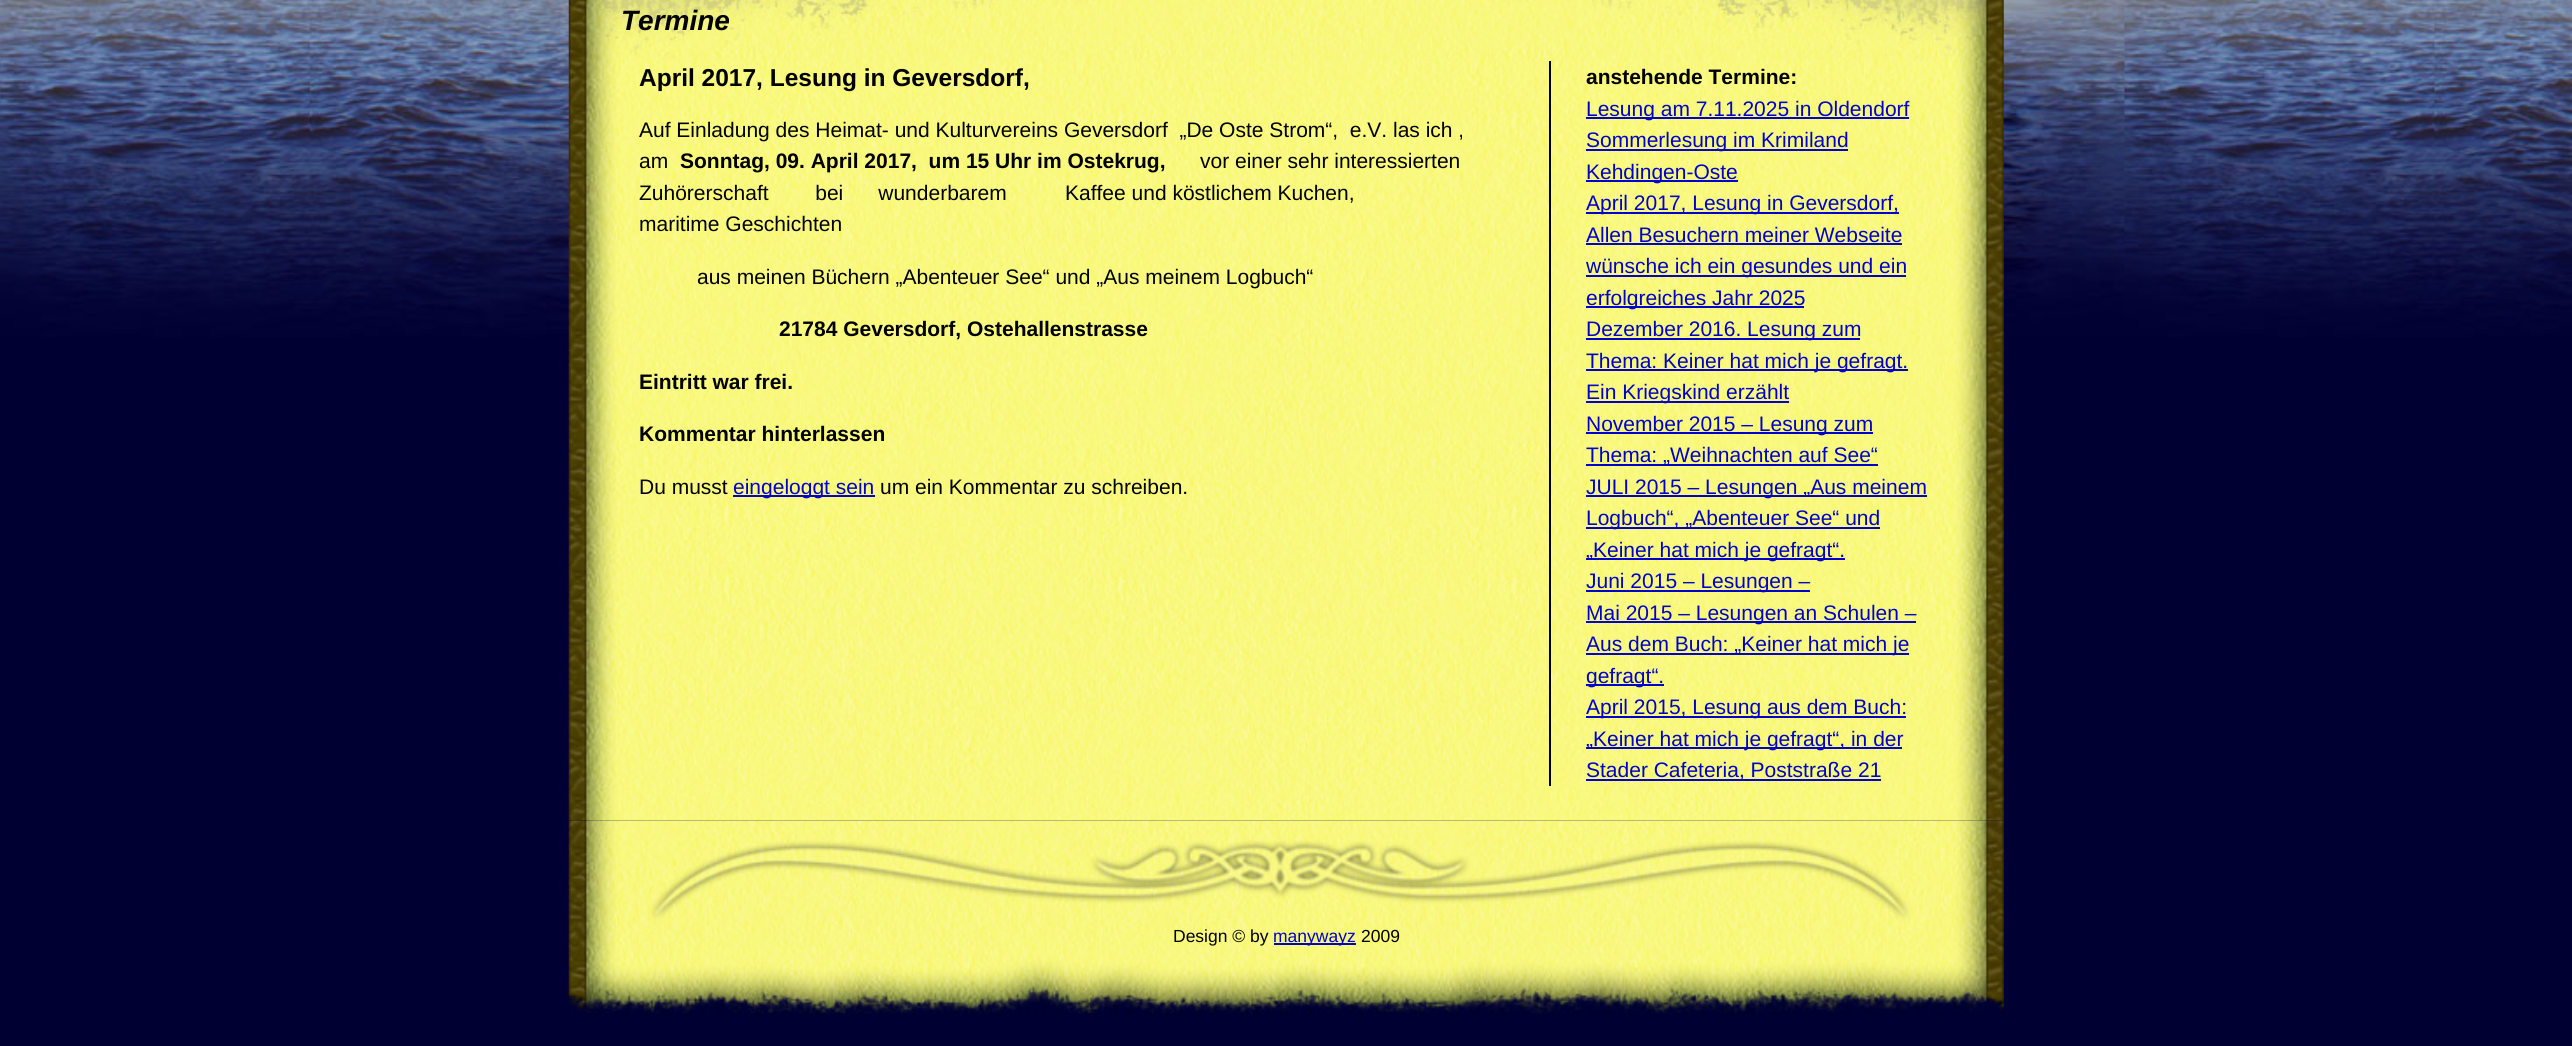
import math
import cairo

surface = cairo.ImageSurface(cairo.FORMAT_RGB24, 2572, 1046)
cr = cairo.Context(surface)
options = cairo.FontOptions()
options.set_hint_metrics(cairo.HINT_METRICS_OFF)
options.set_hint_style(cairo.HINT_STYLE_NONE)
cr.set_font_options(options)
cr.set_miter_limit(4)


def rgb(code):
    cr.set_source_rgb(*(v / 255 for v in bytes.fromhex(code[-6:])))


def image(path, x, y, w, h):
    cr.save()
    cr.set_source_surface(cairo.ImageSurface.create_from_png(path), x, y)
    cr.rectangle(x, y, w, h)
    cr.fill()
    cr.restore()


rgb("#000033")
cr.paint()
image("img/1.png", 0, 0, 2572, 337)
image("img/2.png", 568, 0, 1436, 61)
image("img/3.png", 568, 61, 1436, 760)
for x, y, w, h, color in [
    (733, 495, 142, 2, "#0000cc"),
    (1549, 61, 2, 725, "#000000"),
    (1586, 117, 323, 2, "#0000cc"),
    (1586, 149, 262, 2, "#0000cc"),
    (1586, 180, 152, 2, "#0000cc"),
    (1586, 212, 313, 2, "#0000cc"),
    (1586, 243, 316, 2, "#0000cc"),
    (1586, 275, 320, 2, "#0000cc"),
    (1586, 306, 218, 2, "#0000cc"),
    (1586, 338, 274, 2, "#0000cc"),
    (1586, 369, 322, 2, "#0000cc"),
    (1586, 401, 203, 2, "#0000cc"),
    (1586, 432, 287, 2, "#0000cc"),
    (1586, 464, 292, 2, "#0000cc"),
    (1586, 495, 341, 2, "#0000cc"),
    (1586, 527, 294, 2, "#0000cc"),
    (1586, 558, 259, 2, "#0000cc"),
    (1586, 590, 224, 2, "#0000cc"),
    (1586, 621, 330, 2, "#0000cc"),
    (1586, 653, 323, 2, "#0000cc"),
    (1586, 684, 78, 2, "#0000cc"),
    (1586, 716, 320, 2, "#0000cc"),
    (1586, 747, 316, 2, "#0000cc"),
    (1586, 779, 295, 2, "#0000cc"),
]:
    rgb(color)
    cr.rectangle(x, y, w, h)
    cr.fill()
image("img/4.png", 568, 820, 1436, 197)
cr.rectangle(1274, 943, 82, 2)
cr.fill()
cr.select_font_face("Liberation Sans", cairo.FONT_SLANT_ITALIC, cairo.FONT_WEIGHT_BOLD)
cr.set_font_size(28)
rgb("#000000")
cr.move_to(621, 30)
cr.show_text("Termine")
cr.select_font_face("Liberation Sans", cairo.FONT_SLANT_NORMAL, cairo.FONT_WEIGHT_BOLD)
cr.set_font_size(24.5)
cr.move_to(639, 86)
cr.show_text("April 2017, Lesung in Geversdorf,")
cr.select_font_face("Liberation Sans")
cr.set_font_size(21)
cr.move_to(639, 137)
cr.show_text("Auf Einladung des Heimat- und Kulturvereins Geversdorf  „De Oste Strom“,  e.V. las ich ,")
cr.move_to(639, 168)
cr.show_text("am")
cr.select_font_face("Liberation Sans", cairo.FONT_SLANT_NORMAL, cairo.FONT_WEIGHT_BOLD)
cr.move_to(680, 168)
cr.show_text("Sonntag, 09. April 2017,  um 15 Uhr im Ostekrug,")
cr.select_font_face("Liberation Sans")
for x, y, s in [
    (1200, 168, "vor einer sehr interessierten"),
    (639, 200, "Zuhörerschaft        bei      wunderbarem          Kaffee und köstlichem Kuchen,"),
    (639, 231, "maritime Geschichten"),
    (697, 284, "aus meinen Büchern „Abenteuer See“ und „Aus meinem Logbuch“"),
]:
    cr.move_to(x, y)
    cr.show_text(s)
cr.select_font_face("Liberation Sans", cairo.FONT_SLANT_NORMAL, cairo.FONT_WEIGHT_BOLD)
for x, y, s in [
    (779, 336, "21784 Geversdorf, Ostehallenstrasse"),
    (639, 389, "Eintritt war frei."),
    (639, 441, "Kommentar hinterlassen"),
]:
    cr.move_to(x, y)
    cr.show_text(s)
cr.select_font_face("Liberation Sans")
cr.move_to(639, 494)
cr.show_text("Du musst")
rgb("#0000cc")
cr.move_to(733, 494)
cr.show_text("eingeloggt sein")
rgb("#000000")
cr.move_to(880, 494)
cr.show_text("um ein Kommentar zu schreiben.")
cr.select_font_face("Liberation Sans", cairo.FONT_SLANT_NORMAL, cairo.FONT_WEIGHT_BOLD)
cr.move_to(1586, 84)
cr.show_text("anstehende Termine:")
cr.select_font_face("Liberation Sans")
rgb("#0000cc")
for x, y, s in [
    (1586, 116, "Lesung am 7.11.2025 in Oldendorf"),
    (1586, 147, "Sommerlesung im Krimiland"),
    (1586, 179, "Kehdingen-Oste"),
    (1586, 210, "April 2017, Lesung in Geversdorf,"),
    (1586, 242, "Allen Besuchern meiner Webseite"),
    (1586, 273, "wünsche ich ein gesundes und ein"),
    (1586, 305, "erfolgreiches Jahr 2025"),
    (1586, 336, "Dezember 2016. Lesung zum"),
    (1586, 368, "Thema: Keiner hat mich je gefragt."),
    (1586, 399, "Ein Kriegskind erzählt"),
    (1586, 431, "November 2015 – Lesung zum"),
    (1586, 462, "Thema: „Weihnachten auf See“"),
    (1586, 494, "JULI 2015 – Lesungen „Aus meinem"),
    (1586, 525, "Logbuch“, „Abenteuer See“ und"),
    (1586, 557, "„Keiner hat mich je gefragt“."),
    (1586, 588, "Juni 2015 – Lesungen –"),
    (1586, 620, "Mai 2015 – Lesungen an Schulen –"),
    (1586, 651, "Aus dem Buch: „Keiner hat mich je"),
    (1586, 683, "gefragt“."),
    (1586, 714, "April 2015, Lesung aus dem Buch:"),
    (1586, 746, "„Keiner hat mich je gefragt“, in der"),
    (1586, 777, "Stader Cafeteria, Poststraße 21"),
]:
    cr.move_to(x, y)
    cr.show_text(s)
cr.set_font_size(17.5)
rgb("#000000")
cr.move_to(1173, 942)
cr.show_text("Design © by")
rgb("#0000cc")
cr.move_to(1273, 942)
cr.show_text("manywayz")
rgb("#000000")
cr.move_to(1361, 942)
cr.show_text("2009")
surface.write_to_png("page.png")
